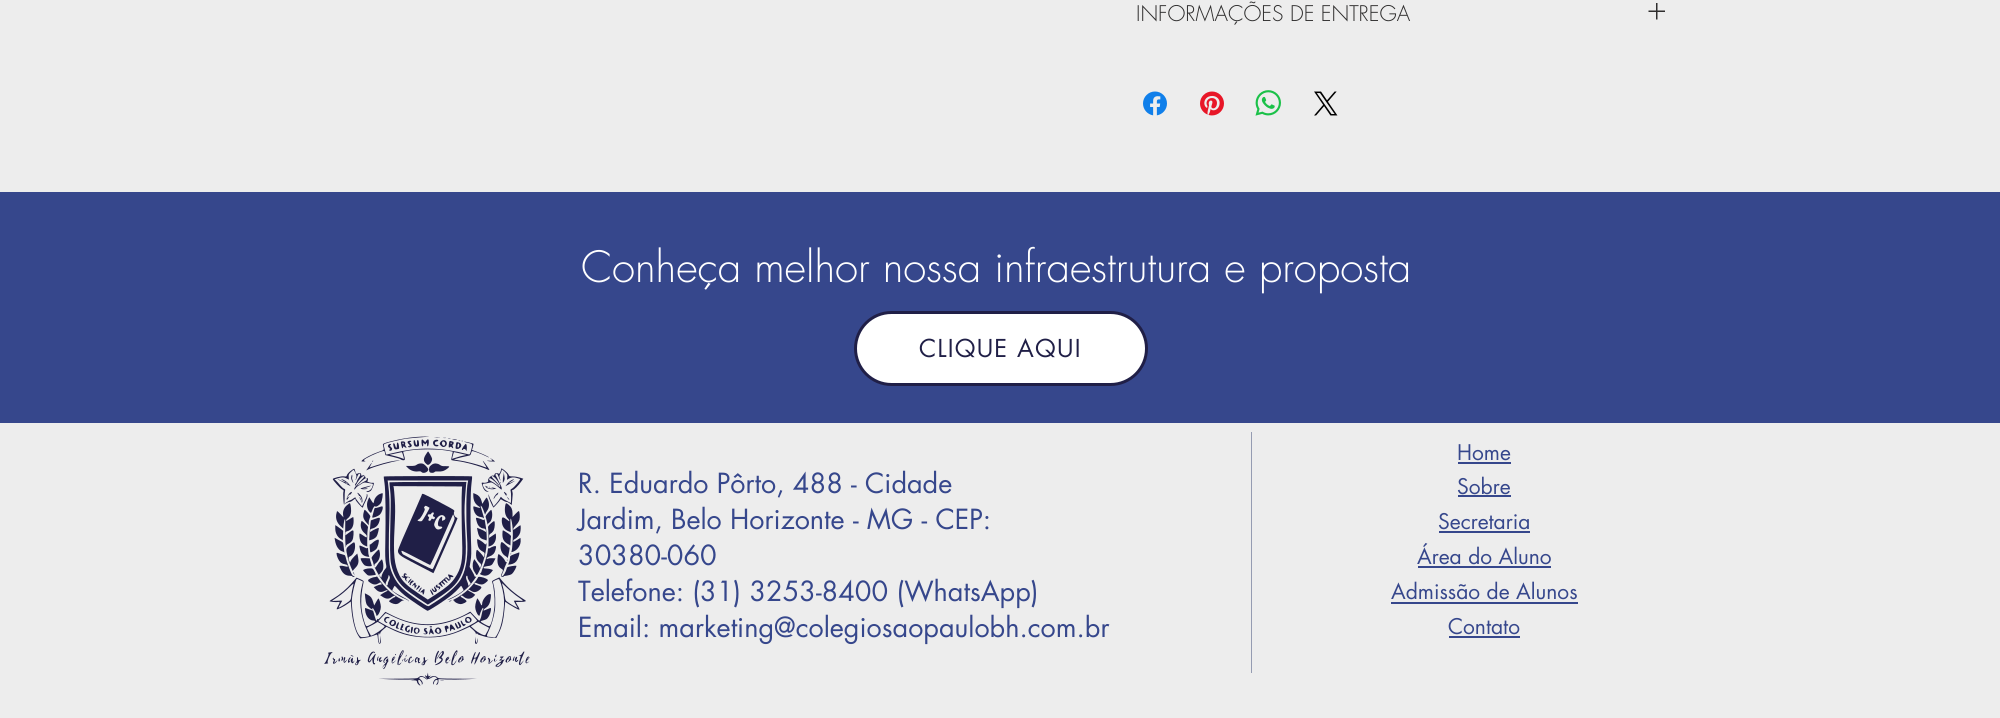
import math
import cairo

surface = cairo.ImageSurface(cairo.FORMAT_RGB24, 2000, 718)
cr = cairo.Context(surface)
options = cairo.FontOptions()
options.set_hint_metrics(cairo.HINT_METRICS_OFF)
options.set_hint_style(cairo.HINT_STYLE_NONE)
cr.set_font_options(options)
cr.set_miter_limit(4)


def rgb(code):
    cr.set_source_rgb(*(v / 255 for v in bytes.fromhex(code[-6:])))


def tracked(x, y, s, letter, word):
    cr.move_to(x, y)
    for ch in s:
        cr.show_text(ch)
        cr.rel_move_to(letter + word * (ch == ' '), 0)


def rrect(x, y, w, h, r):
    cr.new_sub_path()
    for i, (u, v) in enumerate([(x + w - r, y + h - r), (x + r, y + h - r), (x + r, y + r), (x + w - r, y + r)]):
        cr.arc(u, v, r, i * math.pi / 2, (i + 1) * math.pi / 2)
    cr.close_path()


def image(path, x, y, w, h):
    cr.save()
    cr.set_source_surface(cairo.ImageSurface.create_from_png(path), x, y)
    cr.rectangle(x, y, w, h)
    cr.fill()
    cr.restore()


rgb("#ededed")
cr.paint()
image("img/1.png", 1648, 3, 17, 17)
image("img/2.png", 1143, 91, 24, 25)
image("img/3.png", 1200, 91, 24, 25)
image("img/4.png", 1255, 90, 26, 26)
image("img/5.png", 1314, 91, 24, 25)
rgb("#36478c")
cr.rectangle(0, 192, 2000, 231)
cr.fill()
rgb("#ffffff")
rrect(855.5, 312.5, 291, 72, 36)
cr.fill_preserve()
rgb("#201f47")
cr.set_line_width(3)
cr.stroke()
image("img/6.png", 324, 436, 206, 250)
for x, y, w, h, color in [
    (1251, 432, 1, 241, "#959cb2"),
    (1458, 462, 53, 2, "#36478c"),
    (1458, 495, 53, 2, "#36478c"),
    (1439, 531, 91, 2, "#36478c"),
    (1418, 566, 133, 2, "#36478c"),
    (1391, 602, 187, 2, "#36478c"),
    (1449, 636, 71, 2, "#36478c"),
]:
    rgb(color)
    cr.rectangle(x, y, w, h)
    cr.fill()
cr.select_font_face("futura Light")
cr.set_font_size(21)
rgb("#2f2e2e")
cr.move_to(1136, 21)
cr.show_text("INFORMAÇÕES DE ENTREGA")
cr.set_font_size(42)
rgb("#ffffff")
cr.move_to(581, 282)
cr.show_text("Conheça melhor nossa infraestrutura e proposta")
cr.select_font_face("futura")
cr.set_font_size(24)
rgb("#201f47")
tracked(919, 357, "CLIQUE AQUI", 1.25, 0)
cr.set_font_size(27)
rgb("#36478c")
for x, y, s in [
    (578, 493, "R. Eduardo Pôrto, 488 - Cidade"),
    (578, 529, "Jardim, Belo Horizonte - MG - CEP:"),
    (578, 565, "30380-060"),
    (578, 601, "Telefone: (31) 3253-8400 (WhatsApp)"),
    (578, 637, "Email: marketing@colegiosaopaulobh.com.br"),
]:
    cr.move_to(x, y)
    cr.show_text(s)
cr.set_font_size(21)
for x, y, s in [
    (1457, 460, "Home"),
    (1457, 494, "Sobre"),
    (1438, 529, "Secretaria"),
    (1417, 564, "Área do Aluno"),
    (1391, 599, "Admissão de Alunos"),
    (1448, 634, "Contato"),
]:
    cr.move_to(x, y)
    cr.show_text(s)
surface.write_to_png("page.png")
